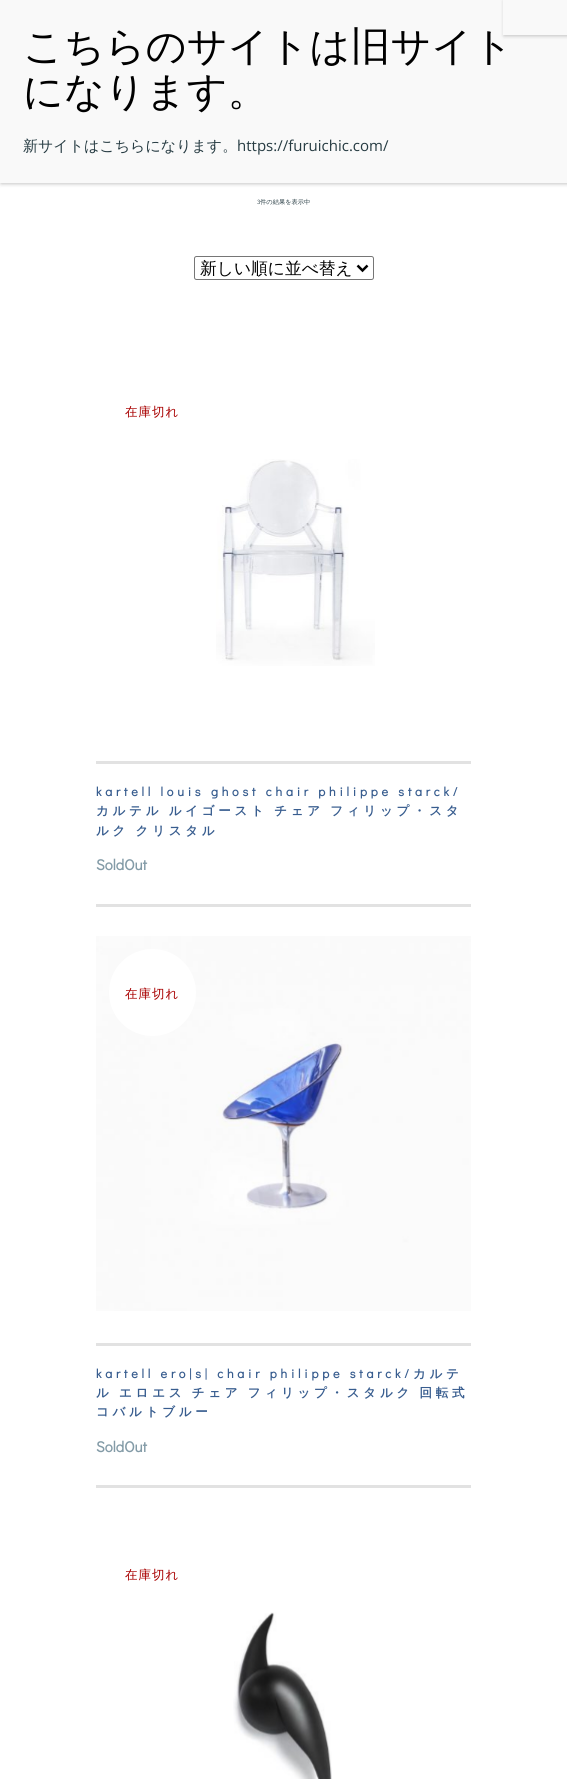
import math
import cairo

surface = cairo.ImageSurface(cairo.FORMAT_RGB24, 567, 1779)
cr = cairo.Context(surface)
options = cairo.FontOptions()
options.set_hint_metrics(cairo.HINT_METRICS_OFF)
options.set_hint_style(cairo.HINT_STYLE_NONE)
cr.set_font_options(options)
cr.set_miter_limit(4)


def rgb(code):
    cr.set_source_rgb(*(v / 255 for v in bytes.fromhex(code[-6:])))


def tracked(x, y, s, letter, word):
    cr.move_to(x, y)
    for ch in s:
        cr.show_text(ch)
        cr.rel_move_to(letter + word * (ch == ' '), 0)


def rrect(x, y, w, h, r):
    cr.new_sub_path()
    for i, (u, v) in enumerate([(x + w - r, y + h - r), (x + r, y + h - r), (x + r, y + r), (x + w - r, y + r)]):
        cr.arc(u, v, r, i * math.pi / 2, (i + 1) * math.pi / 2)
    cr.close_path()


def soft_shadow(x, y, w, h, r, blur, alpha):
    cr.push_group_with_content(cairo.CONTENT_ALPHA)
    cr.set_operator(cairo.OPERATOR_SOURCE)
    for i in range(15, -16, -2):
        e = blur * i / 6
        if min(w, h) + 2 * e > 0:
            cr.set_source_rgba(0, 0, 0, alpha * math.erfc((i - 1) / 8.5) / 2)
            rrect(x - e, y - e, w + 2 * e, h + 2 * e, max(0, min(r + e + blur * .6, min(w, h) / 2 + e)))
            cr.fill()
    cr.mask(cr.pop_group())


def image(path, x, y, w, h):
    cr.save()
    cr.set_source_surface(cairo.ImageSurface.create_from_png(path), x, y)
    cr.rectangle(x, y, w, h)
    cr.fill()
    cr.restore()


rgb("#ffffff")
cr.paint()
rgb("#020202")
soft_shadow(1, 1, 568, 183, 0, 2, 0.23)
rgb("#f9f9f9")
cr.rectangle(0, 0, 567, 183)
cr.fill()
cr.save()
cr.set_fill_rule(cairo.FILL_RULE_EVEN_ODD)
cr.new_path()
cr.move_to(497, 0)
cr.line_to(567, 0)
cr.line_to(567, 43)
cr.line_to(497, 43)
cr.close_path()
cr.move_to(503, 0)
cr.line_to(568, 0)
cr.line_to(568, 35)
cr.line_to(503, 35)
cr.close_path()
cr.clip()
rgb("#020202")
soft_shadow(504, 1, 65, 35, 0, 2, 0.23)
cr.restore()
rrect(194.5, 256.5, 179, 23, 2)
rgb("#767676")
cr.set_line_width(1)
cr.stroke()
cr.new_path()
cr.move_to(357.5, 265.5)
cr.line_to(362.5, 270.5)
cr.line_to(367.5, 265.5)
rgb("#000000")
cr.set_line_width(2.5)
cr.stroke()
image("img/1.png", 216, 459, 159, 207)
rgb("#e2e2e2")
cr.rectangle(96, 761, 375, 3)
cr.fill()
cr.rectangle(96, 904, 375, 3)
cr.fill()
image("img/2.png", 96, 936, 375, 375)
rgb("#ffffff")
cr.arc(152.5, 992.5, 43.5, 0, 2 * math.pi)
cr.fill()
rgb("#e2e2e2")
cr.rectangle(96, 1343, 375, 3)
cr.fill()
cr.rectangle(96, 1485, 375, 3)
cr.fill()
image("img/3.png", 233, 1612, 99, 167)
cr.select_font_face("WenQuanYi Zen Hei Medium")
cr.set_font_size(40)
rgb("#000000")
cr.move_to(23, 60)
cr.show_text("こちらのサイトは旧サイト")
cr.move_to(23, 105)
cr.show_text("になります。")
cr.set_font_size(15)
rgb("#263b42")
cr.move_to(23, 151)
cr.show_text("新サイトはこちらになります。")
cr.select_font_face("Open Sans")
cr.move_to(237, 151)
cr.show_text("https://furuichic.com/")
cr.select_font_face("Didact Gothic")
cr.set_font_size(6.25)
cr.move_to(257, 204)
cr.show_text("3")
cr.select_font_face("WenQuanYi Zen Hei Medium")
cr.move_to(260, 204)
cr.show_text("件の結果を表示中")
cr.set_font_size(16.75)
rgb("#000000")
cr.move_to(200, 274)
cr.show_text("新しい順に並べ替え")
cr.set_font_size(12.5)
rgb("#a80000")
tracked(125, 416, "在庫切れ", 1, 0)
cr.select_font_face("Didact Gothic", cairo.FONT_SLANT_NORMAL, cairo.FONT_WEIGHT_BOLD)
rgb("#385d8f")
tracked(96, 796, "kartell louis ghost chair philippe starck/", 3.75, 0)
cr.select_font_face("WenQuanYi Zen Hei", cairo.FONT_SLANT_NORMAL, cairo.FONT_WEIGHT_BOLD)
tracked(96, 815, "カルテル ルイゴースト チェア フィリップ・スタ", 3.75, -1)
tracked(96, 835, "ルク クリスタル", 3.75, -1)
cr.select_font_face("Didact Gothic", cairo.FONT_SLANT_NORMAL, cairo.FONT_WEIGHT_BOLD)
cr.set_font_size(15)
rgb("#839ba7")
cr.move_to(96, 870)
cr.show_text("SoldOut")
cr.select_font_face("WenQuanYi Zen Hei Medium")
cr.set_font_size(12.5)
rgb("#a80000")
tracked(125, 998, "在庫切れ", 1, 0)
cr.select_font_face("Didact Gothic", cairo.FONT_SLANT_NORMAL, cairo.FONT_WEIGHT_BOLD)
rgb("#385d8f")
tracked(96, 1378, "kartell ero|s| chair philippe starck/", 3.75, 0)
cr.select_font_face("WenQuanYi Zen Hei", cairo.FONT_SLANT_NORMAL, cairo.FONT_WEIGHT_BOLD)
tracked(413, 1378, "カルテ", 3.75, 0)
tracked(96, 1397, "ル エロエス チェア フィリップ・スタルク 回転式", 3.75, -1)
tracked(96, 1416, "コバルトブルー", 3.75, 0)
cr.select_font_face("Didact Gothic", cairo.FONT_SLANT_NORMAL, cairo.FONT_WEIGHT_BOLD)
cr.set_font_size(15)
rgb("#839ba7")
cr.move_to(96, 1452)
cr.show_text("SoldOut")
cr.select_font_face("WenQuanYi Zen Hei Medium")
cr.set_font_size(12.5)
rgb("#a80000")
tracked(125, 1579, "在庫切れ", 1, 0)
surface.write_to_png("page.png")
